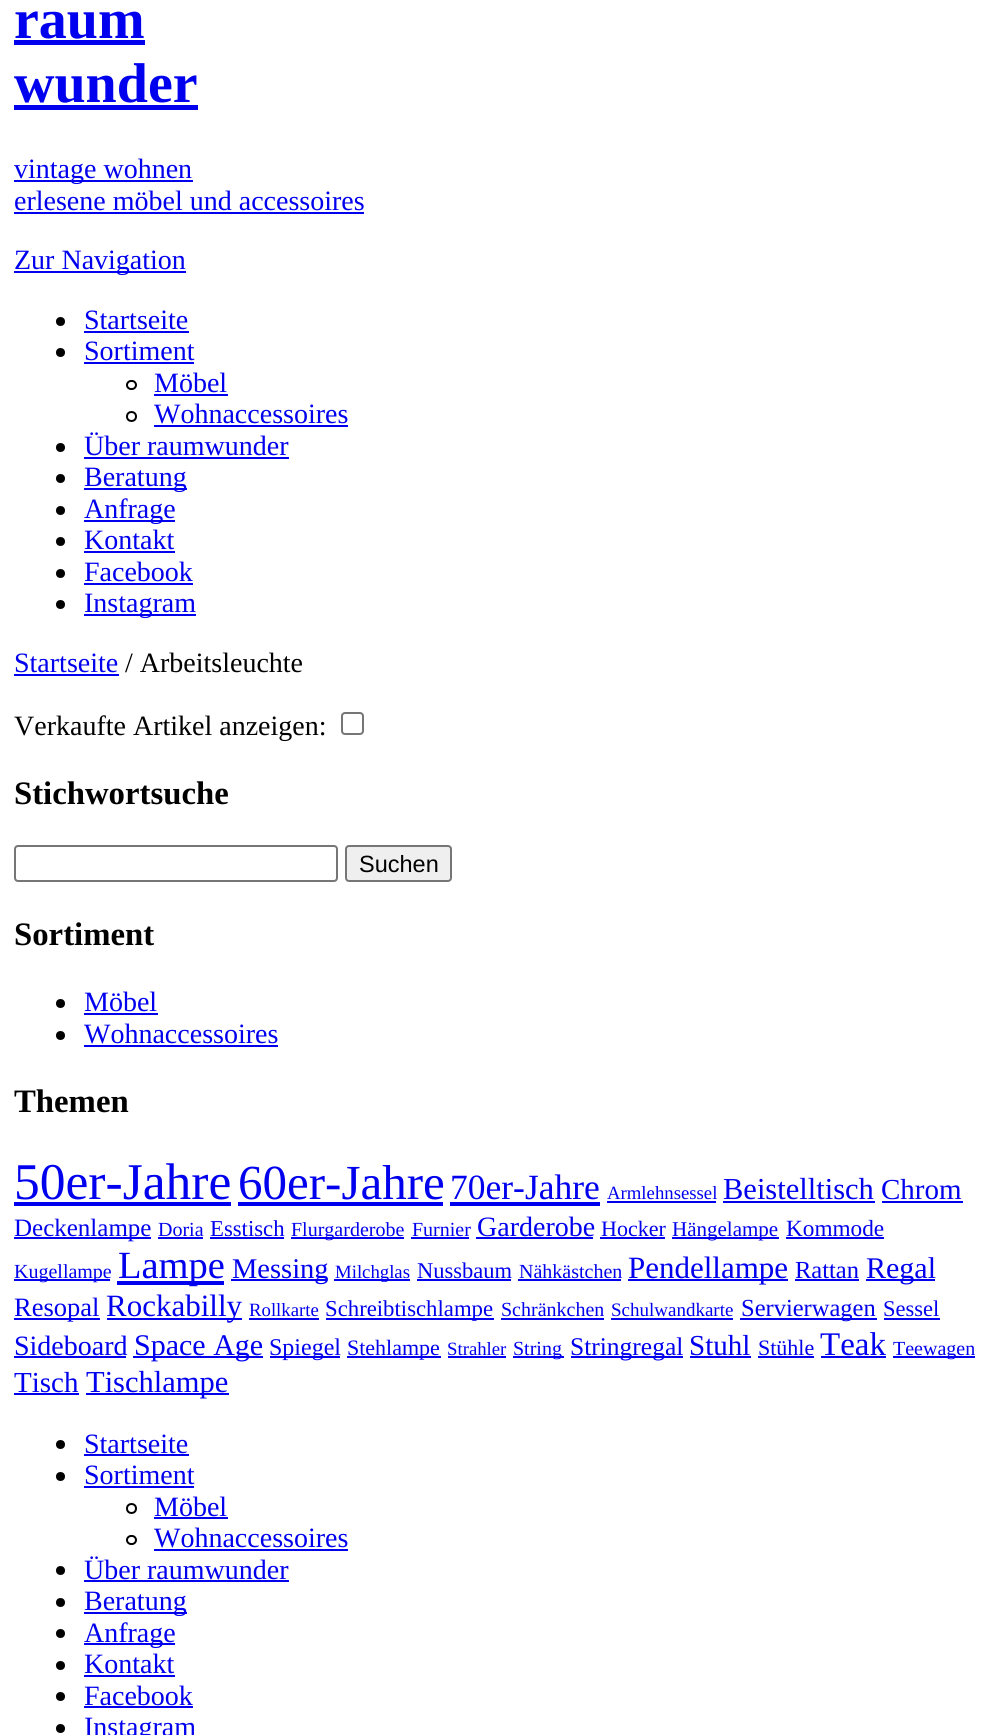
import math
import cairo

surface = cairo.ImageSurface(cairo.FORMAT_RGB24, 995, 1735)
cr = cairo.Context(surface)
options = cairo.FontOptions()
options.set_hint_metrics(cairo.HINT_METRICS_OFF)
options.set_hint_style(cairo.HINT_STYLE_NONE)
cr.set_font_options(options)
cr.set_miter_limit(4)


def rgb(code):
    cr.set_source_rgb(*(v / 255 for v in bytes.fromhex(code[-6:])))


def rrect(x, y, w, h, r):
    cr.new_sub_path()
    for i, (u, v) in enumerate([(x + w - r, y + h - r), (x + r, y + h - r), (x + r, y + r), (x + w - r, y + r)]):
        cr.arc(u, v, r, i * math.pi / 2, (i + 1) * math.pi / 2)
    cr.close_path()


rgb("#ffffff")
cr.paint()
for x, y, w, h, color in [
    (14, 40, 131, 5, "#0000ee"),
    (14, 105, 184, 5, "#0000ee"),
    (14, 180, 179, 2, "#0000ee"),
    (14, 212, 350, 2, "#0000ee"),
    (14, 271, 172, 2, "#0000ee"),
]:
    rgb(color)
    cr.rectangle(x, y, w, h)
    cr.fill()
rgb("#000000")
cr.arc(60.5, 321.5, 4.5, 0, 2 * math.pi)
cr.fill()
rgb("#0000ee")
cr.rectangle(84, 331, 105, 2)
cr.fill()
rgb("#000000")
cr.arc(60.5, 352.5, 4.5, 0, 2 * math.pi)
cr.fill()
rgb("#0000ee")
cr.rectangle(84, 362, 110, 2)
cr.fill()
rrect(127, 381, 9, 8, 4)
rgb("#000000")
cr.stroke()
rgb("#0000ee")
cr.rectangle(154, 394, 74, 2)
cr.fill()
cr.arc(131.5, 416.5, 4.5, 0, 2 * math.pi)
rgb("#000000")
cr.stroke()
rgb("#0000ee")
cr.rectangle(154, 425, 194, 2)
cr.fill()
rgb("#000000")
cr.arc(60.5, 447.5, 4.5, 0, 2 * math.pi)
cr.fill()
rgb("#0000ee")
cr.rectangle(84, 457, 205, 2)
cr.fill()
rgb("#000000")
cr.arc(60.5, 478.5, 4.5, 0, 2 * math.pi)
cr.fill()
rgb("#0000ee")
cr.rectangle(84, 488, 103, 2)
cr.fill()
rgb("#000000")
cr.arc(60.5, 510.5, 4.5, 0, 2 * math.pi)
cr.fill()
rgb("#0000ee")
cr.rectangle(84, 520, 91, 2)
cr.fill()
rgb("#000000")
cr.arc(60.5, 541.5, 4.5, 0, 2 * math.pi)
cr.fill()
rgb("#0000ee")
cr.rectangle(84, 551, 91, 2)
cr.fill()
rgb("#000000")
cr.arc(60.5, 573.5, 4.5, 0, 2 * math.pi)
cr.fill()
rgb("#0000ee")
cr.rectangle(84, 583, 109, 2)
cr.fill()
rgb("#000000")
cr.arc(60.5, 604.5, 4.5, 0, 2 * math.pi)
cr.fill()
rgb("#0000ee")
cr.rectangle(84, 614, 112, 2)
cr.fill()
cr.rectangle(14, 674, 105, 2)
cr.fill()
rrect(342, 713, 21, 21, 3)
rgb("#767676")
cr.stroke()
rrect(15, 846, 322, 35, 3)
cr.stroke()
rgb("#efefef")
rrect(346, 846, 105, 35, 3)
cr.fill_preserve()
rgb("#767676")
cr.stroke()
rgb("#000000")
cr.arc(60.5, 1003.5, 4.5, 0, 2 * math.pi)
cr.fill()
rgb("#0000ee")
cr.rectangle(84, 1013, 74, 2)
cr.fill()
rgb("#000000")
cr.arc(60.5, 1035.5, 4.5, 0, 2 * math.pi)
cr.fill()
for x, y, w, h, color in [
    (84, 1045, 194, 2, "#0000ee"),
    (14, 1202, 217, 4, "#0000ee"),
    (238, 1202, 205, 4, "#0000ee"),
    (450, 1202, 150, 4, "#0000ee"),
    (607, 1201, 109, 2, "#0000ee"),
    (723, 1201, 152, 2, "#0000ee"),
    (882, 1201, 81, 2, "#0000ee"),
    (14, 1237, 137, 2, "#0000ee"),
    (158, 1237, 45, 2, "#0000ee"),
    (210, 1237, 74, 2, "#0000ee"),
    (291, 1237, 113, 2, "#0000ee"),
    (411, 1237, 58, 2, "#0000ee"),
    (476, 1237, 117, 2, "#0000ee"),
    (600, 1237, 65, 2, "#0000ee"),
    (672, 1237, 107, 2, "#0000ee"),
    (786, 1237, 98, 2, "#0000ee"),
    (14, 1279, 96, 2, "#0000ee"),
    (117, 1281, 107, 4, "#0000ee"),
    (231, 1279, 96, 2, "#0000ee"),
    (334, 1279, 76, 2, "#0000ee"),
    (417, 1279, 94, 2, "#0000ee"),
    (518, 1279, 103, 2, "#0000ee"),
    (628, 1279, 160, 2, "#0000ee"),
    (795, 1279, 64, 2, "#0000ee"),
    (866, 1279, 69, 2, "#0000ee"),
    (14, 1318, 86, 2, "#0000ee"),
    (107, 1318, 135, 2, "#0000ee"),
    (249, 1318, 70, 2, "#0000ee"),
    (326, 1318, 168, 2, "#0000ee"),
    (501, 1318, 103, 2, "#0000ee"),
    (611, 1318, 122, 2, "#0000ee"),
    (740, 1318, 137, 2, "#0000ee"),
    (884, 1318, 56, 2, "#0000ee"),
    (14, 1356, 112, 2, "#0000ee"),
    (133, 1356, 130, 2, "#0000ee"),
    (270, 1356, 70, 2, "#0000ee"),
    (347, 1356, 94, 2, "#0000ee"),
    (448, 1356, 58, 2, "#0000ee"),
    (513, 1356, 51, 2, "#0000ee"),
    (571, 1356, 112, 2, "#0000ee"),
    (690, 1356, 61, 2, "#0000ee"),
    (758, 1356, 56, 2, "#0000ee"),
    (821, 1356, 65, 2, "#0000ee"),
    (893, 1356, 82, 2, "#0000ee"),
    (14, 1393, 65, 2, "#0000ee"),
    (86, 1393, 143, 2, "#0000ee"),
]:
    rgb(color)
    cr.rectangle(x, y, w, h)
    cr.fill()
rgb("#000000")
cr.arc(60.5, 1444.5, 4.5, 0, 2 * math.pi)
cr.fill()
rgb("#0000ee")
cr.rectangle(84, 1454, 105, 2)
cr.fill()
rgb("#000000")
cr.arc(60.5, 1476.5, 4.5, 0, 2 * math.pi)
cr.fill()
rgb("#0000ee")
cr.rectangle(84, 1486, 110, 2)
cr.fill()
cr.arc(131.5, 1508.5, 4.5, 0, 2 * math.pi)
rgb("#000000")
cr.stroke()
rgb("#0000ee")
cr.rectangle(154, 1517, 74, 2)
cr.fill()
rrect(127, 1536, 9, 8, 4)
rgb("#000000")
cr.stroke()
rgb("#0000ee")
cr.rectangle(154, 1549, 194, 2)
cr.fill()
rgb("#000000")
cr.arc(60.5, 1570.5, 4.5, 0, 2 * math.pi)
cr.fill()
rgb("#0000ee")
cr.rectangle(84, 1580, 205, 2)
cr.fill()
rgb("#000000")
cr.arc(60.5, 1602.5, 4.5, 0, 2 * math.pi)
cr.fill()
rgb("#0000ee")
cr.rectangle(84, 1612, 103, 2)
cr.fill()
rgb("#000000")
cr.arc(60.5, 1633.5, 4.5, 0, 2 * math.pi)
cr.fill()
rgb("#0000ee")
cr.rectangle(84, 1643, 91, 2)
cr.fill()
rgb("#000000")
cr.arc(60.5, 1665.5, 4.5, 0, 2 * math.pi)
cr.fill()
rgb("#0000ee")
cr.rectangle(84, 1675, 91, 2)
cr.fill()
rgb("#000000")
cr.arc(60.5, 1696.5, 4.5, 0, 2 * math.pi)
cr.fill()
rgb("#0000ee")
cr.rectangle(84, 1706, 109, 2)
cr.fill()
rgb("#000000")
cr.arc(60.5, 1728.5, 4.5, 0, 2 * math.pi)
cr.fill()
cr.select_font_face("Liberation Serif", cairo.FONT_SLANT_NORMAL, cairo.FONT_WEIGHT_BOLD)
cr.set_font_size(56)
rgb("#0000ee")
cr.move_to(14, 38)
cr.show_text("raum")
cr.move_to(14, 102)
cr.show_text("wunder")
cr.select_font_face("Liberation Serif")
cr.set_font_size(28)
for x, y, s in [
    (14, 178, "vintage wohnen"),
    (14, 210, "erlesene möbel und accessoires"),
    (14, 269, "Zur Navigation"),
    (84, 329, "Startseite"),
    (84, 360, "Sortiment"),
    (154, 392, "Möbel"),
    (154, 423, "Wohnaccessoires"),
    (84, 455, "Über raumwunder"),
    (84, 486, "Beratung"),
    (84, 518, "Anfrage"),
    (84, 549, "Kontakt"),
    (84, 581, "Facebook"),
    (84, 612, "Instagram"),
    (14, 672, "Startseite"),
]:
    cr.move_to(x, y)
    cr.show_text(s)
rgb("#000000")
cr.move_to(125, 672)
cr.show_text("/ Arbeitsleuchte")
cr.move_to(14, 735)
cr.show_text("Verkaufte Artikel anzeigen:")
cr.select_font_face("Liberation Serif", cairo.FONT_SLANT_NORMAL, cairo.FONT_WEIGHT_BOLD)
cr.set_font_size(32.75)
cr.move_to(14, 804)
cr.show_text("Stichwortsuche")
cr.select_font_face("Liberation Sans")
cr.set_font_size(23.5)
cr.move_to(359, 872)
cr.show_text("Suchen")
cr.select_font_face("Liberation Serif", cairo.FONT_SLANT_NORMAL, cairo.FONT_WEIGHT_BOLD)
cr.set_font_size(32.75)
cr.move_to(14, 945)
cr.show_text("Sortiment")
cr.select_font_face("Liberation Serif")
cr.set_font_size(28)
rgb("#0000ee")
cr.move_to(84, 1011)
cr.show_text("Möbel")
cr.move_to(84, 1043)
cr.show_text("Wohnaccessoires")
cr.select_font_face("Liberation Serif", cairo.FONT_SLANT_NORMAL, cairo.FONT_WEIGHT_BOLD)
cr.set_font_size(32.75)
rgb("#000000")
cr.move_to(14, 1112)
cr.show_text("Themen")
cr.select_font_face("Liberation Serif")
cr.set_font_size(51.5)
rgb("#0000ee")
cr.move_to(14, 1199)
cr.show_text("50er-Jahre")
cr.set_font_size(49)
cr.move_to(238, 1199)
cr.show_text("60er-Jahre")
cr.set_font_size(35.5)
cr.move_to(450, 1199)
cr.show_text("70er-Jahre")
cr.set_font_size(18.75)
cr.move_to(607, 1199)
cr.show_text("Armlehnsessel")
cr.set_font_size(30.5)
cr.move_to(723, 1199)
cr.show_text("Beistelltisch")
cr.set_font_size(29)
cr.move_to(881, 1199)
cr.show_text("Chrom")
cr.set_font_size(25)
cr.move_to(14, 1236)
cr.show_text("Deckenlampe")
cr.set_font_size(20)
cr.move_to(158, 1236)
cr.show_text("Doria")
cr.set_font_size(22.75)
cr.move_to(210, 1236)
cr.show_text("Esstisch")
cr.set_font_size(20)
cr.move_to(291, 1236)
cr.show_text("Flurgarderobe")
cr.move_to(412, 1236)
cr.show_text("Furnier")
cr.set_font_size(28)
cr.move_to(477, 1236)
cr.show_text("Garderobe")
cr.set_font_size(22)
cr.move_to(601, 1236)
cr.show_text("Hocker")
cr.set_font_size(21)
cr.move_to(672, 1236)
cr.show_text("Hängelampe")
cr.set_font_size(23.25)
cr.move_to(786, 1236)
cr.show_text("Kommode")
cr.set_font_size(20)
cr.move_to(14, 1278)
cr.show_text("Kugellampe")
cr.set_font_size(38.5)
cr.move_to(118, 1278)
cr.show_text("Lampe")
cr.set_font_size(28.5)
cr.move_to(232, 1278)
cr.show_text("Messing")
cr.set_font_size(18.75)
cr.move_to(335, 1278)
cr.show_text("Milchglas")
cr.set_font_size(22.5)
cr.move_to(417, 1278)
cr.show_text("Nussbaum")
cr.set_font_size(20)
cr.move_to(519, 1278)
cr.show_text("Nähkästchen")
cr.set_font_size(31)
cr.move_to(628, 1278)
cr.show_text("Pendellampe")
cr.set_font_size(24.5)
cr.move_to(795, 1278)
cr.show_text("Rattan")
cr.set_font_size(30)
cr.move_to(866, 1278)
cr.show_text("Regal")
cr.set_font_size(26.5)
cr.move_to(14, 1316)
cr.show_text("Resopal")
cr.set_font_size(31)
cr.move_to(106, 1316)
cr.show_text("Rockabilly")
cr.set_font_size(18.75)
cr.move_to(249, 1316)
cr.show_text("Rollkarte")
cr.set_font_size(22.75)
cr.move_to(325, 1316)
cr.show_text("Schreibtischlampe")
cr.set_font_size(20)
cr.move_to(501, 1316)
cr.show_text("Schränkchen")
cr.set_font_size(19)
cr.move_to(611, 1316)
cr.show_text("Schulwandkarte")
cr.set_font_size(24.5)
cr.move_to(741, 1316)
cr.show_text("Servierwagen")
cr.set_font_size(22.5)
cr.move_to(883, 1316)
cr.show_text("Sessel")
cr.set_font_size(28)
cr.move_to(14, 1355)
cr.show_text("Sideboard")
cr.set_font_size(30)
cr.move_to(134, 1355)
cr.show_text("Space Age")
cr.set_font_size(24)
cr.move_to(269, 1355)
cr.show_text("Spiegel")
cr.set_font_size(22)
cr.move_to(347, 1355)
cr.show_text("Stehlampe")
cr.set_font_size(18.75)
cr.move_to(447, 1355)
cr.show_text("Strahler")
cr.set_font_size(20)
cr.move_to(513, 1355)
cr.show_text("String")
cr.set_font_size(25.5)
cr.move_to(570, 1355)
cr.show_text("Stringregal")
cr.set_font_size(29)
cr.move_to(689, 1355)
cr.show_text("Stuhl")
cr.set_font_size(22)
cr.move_to(758, 1355)
cr.show_text("Stühle")
cr.set_font_size(33)
cr.move_to(820, 1355)
cr.show_text("Teak")
cr.set_font_size(20)
cr.move_to(893, 1355)
cr.show_text("Teewagen")
cr.set_font_size(29)
cr.move_to(14, 1392)
cr.show_text("Tisch")
cr.set_font_size(30.5)
cr.move_to(86, 1392)
cr.show_text("Tischlampe")
cr.set_font_size(28)
for x, y, s in [
    (84, 1453, "Startseite"),
    (84, 1484, "Sortiment"),
    (154, 1516, "Möbel"),
    (154, 1547, "Wohnaccessoires"),
    (84, 1579, "Über raumwunder"),
    (84, 1610, "Beratung"),
    (84, 1642, "Anfrage"),
    (84, 1673, "Kontakt"),
    (84, 1705, "Facebook"),
    (84, 1736, "Instagram"),
]:
    cr.move_to(x, y)
    cr.show_text(s)
surface.write_to_png("page.png")
